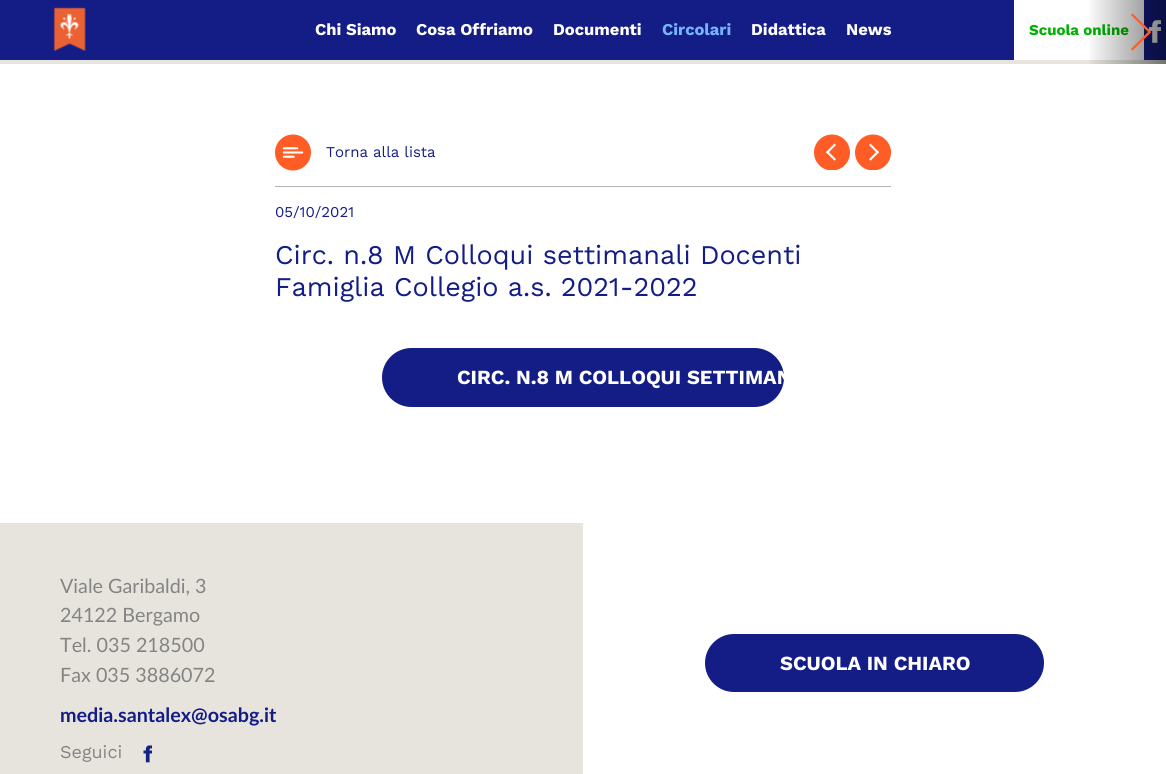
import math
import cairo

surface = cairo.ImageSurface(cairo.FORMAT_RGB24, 1166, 774)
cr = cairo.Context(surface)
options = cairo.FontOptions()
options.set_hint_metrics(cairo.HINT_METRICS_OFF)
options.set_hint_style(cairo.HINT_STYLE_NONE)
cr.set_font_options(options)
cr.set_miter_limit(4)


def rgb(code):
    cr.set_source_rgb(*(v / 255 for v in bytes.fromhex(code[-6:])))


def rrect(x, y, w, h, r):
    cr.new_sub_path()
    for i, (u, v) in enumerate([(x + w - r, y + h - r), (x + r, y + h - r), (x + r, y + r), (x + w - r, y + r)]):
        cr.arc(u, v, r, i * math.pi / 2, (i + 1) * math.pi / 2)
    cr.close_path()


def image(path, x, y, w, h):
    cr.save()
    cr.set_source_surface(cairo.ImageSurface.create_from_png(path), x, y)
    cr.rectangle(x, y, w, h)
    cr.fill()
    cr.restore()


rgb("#ffffff")
cr.paint()
rgb("#e7e4dd")
cr.rectangle(0, 60, 1166, 4)
cr.fill()
rgb("#141d86")
cr.rectangle(0, 0, 1166, 60)
cr.fill()
image("img/1.png", 53, 7, 33, 45)
rgb("#ffffff")
cr.rectangle(1014, 0, 130, 60)
cr.fill()
image("img/2.png", 1149, 20, 12, 23)
rgb("#b5b6b0")
cr.rectangle(275, 186, 616, 1)
cr.fill()
image("img/3.png", 275, 134, 36, 37)
image("img/4.png", 814, 134, 36, 36)
image("img/5.png", 855, 134, 36, 36)
rgb("#141d86")
rrect(382, 348, 402, 59, 29.5)
cr.fill()
rgb("#e7e4dd")
cr.rectangle(0, 523, 583, 251)
cr.fill()
image("img/6.png", 143, 745, 9, 18)
rgb("#141d86")
rrect(705, 634, 339, 58, 29)
cr.fill()
cr.select_font_face("Work Sans", cairo.FONT_SLANT_NORMAL, cairo.FONT_WEIGHT_BOLD)
cr.set_font_size(16.5)
rgb("#ffffff")
for x, y, s in [
    (315, 35, "Chi Siamo"),
    (416, 35, "Cosa Offriamo"),
    (553, 35, "Documenti"),
]:
    cr.move_to(x, y)
    cr.show_text(s)
rgb("#76b4fd")
cr.move_to(662, 35)
cr.show_text("Circolari")
rgb("#ffffff")
cr.move_to(751, 35)
cr.show_text("Didattica")
cr.move_to(846, 35)
cr.show_text("News")
cr.set_font_size(15)
rgb("#00b200")
cr.move_to(1029, 35)
cr.show_text("Scuola online")
gradient = cairo.LinearGradient(1086, 32, 1166, 32)
gradient.add_color_stop_rgba(0, 0, 0, 0, 0)
gradient.add_color_stop_rgba(1, 0, 0, 0, 0.5)
cr.set_source(gradient)
cr.rectangle(1089, 0, 77, 64)
cr.fill()
rgb("#ff5c26")
cr.set_fill_rule(cairo.FILL_RULE_EVEN_ODD)
cr.new_path()
cr.move_to(1150.5, 33)
cr.line_to(1151, 32)
cr.line_to(1150.5, 31)
cr.line_to(1133, 14)
cr.curve_to(1132, 13, 1130.5, 14.5, 1131.5, 15.5)
cr.line_to(1148, 32)
cr.line_to(1131.5, 48.5)
cr.curve_to(1130.5, 49.5, 1132, 51, 1133, 50)
cr.close_path()
cr.fill()
cr.select_font_face("Work Sans")
rgb("#141d86")
cr.move_to(326, 157)
cr.show_text("Torna alla lista")
cr.move_to(275, 217)
cr.show_text("05/10/2021")
cr.set_font_size(27)
cr.move_to(275, 264)
cr.show_text("Circ. n.8 M Colloqui settimanali Docenti")
cr.move_to(275, 296)
cr.show_text("Famiglia Collegio a.s. 2021-2022")
cr.select_font_face("Work Sans", cairo.FONT_SLANT_NORMAL, cairo.FONT_WEIGHT_BOLD)
cr.set_font_size(20)
rgb("#ffffff")
cr.move_to(457, 384)
cr.show_text("CIRC. N.8 M COLLOQUI SETTIMAN")
cr.select_font_face("Lato")
cr.set_font_size(19.75)
rgb("#848484")
for x, y, s in [
    (60, 593, "Viale Garibaldi, 3"),
    (60, 622, "24122 Bergamo"),
    (60, 652, "Tel. 035 218500"),
    (60, 682, "Fax 035 3886072"),
]:
    cr.move_to(x, y)
    cr.show_text(s)
cr.select_font_face("Lato", cairo.FONT_SLANT_NORMAL, cairo.FONT_WEIGHT_BOLD)
rgb("#141d86")
cr.move_to(60, 722)
cr.show_text("media.santalex@osabg.it")
cr.select_font_face("Work Sans")
cr.set_font_size(18)
rgb("#848484")
cr.move_to(60, 758)
cr.show_text("Seguici")
cr.select_font_face("Work Sans", cairo.FONT_SLANT_NORMAL, cairo.FONT_WEIGHT_BOLD)
cr.set_font_size(20)
rgb("#ffffff")
cr.move_to(780, 670)
cr.show_text("SCUOLA IN CHIARO")
surface.write_to_png("page.png")
